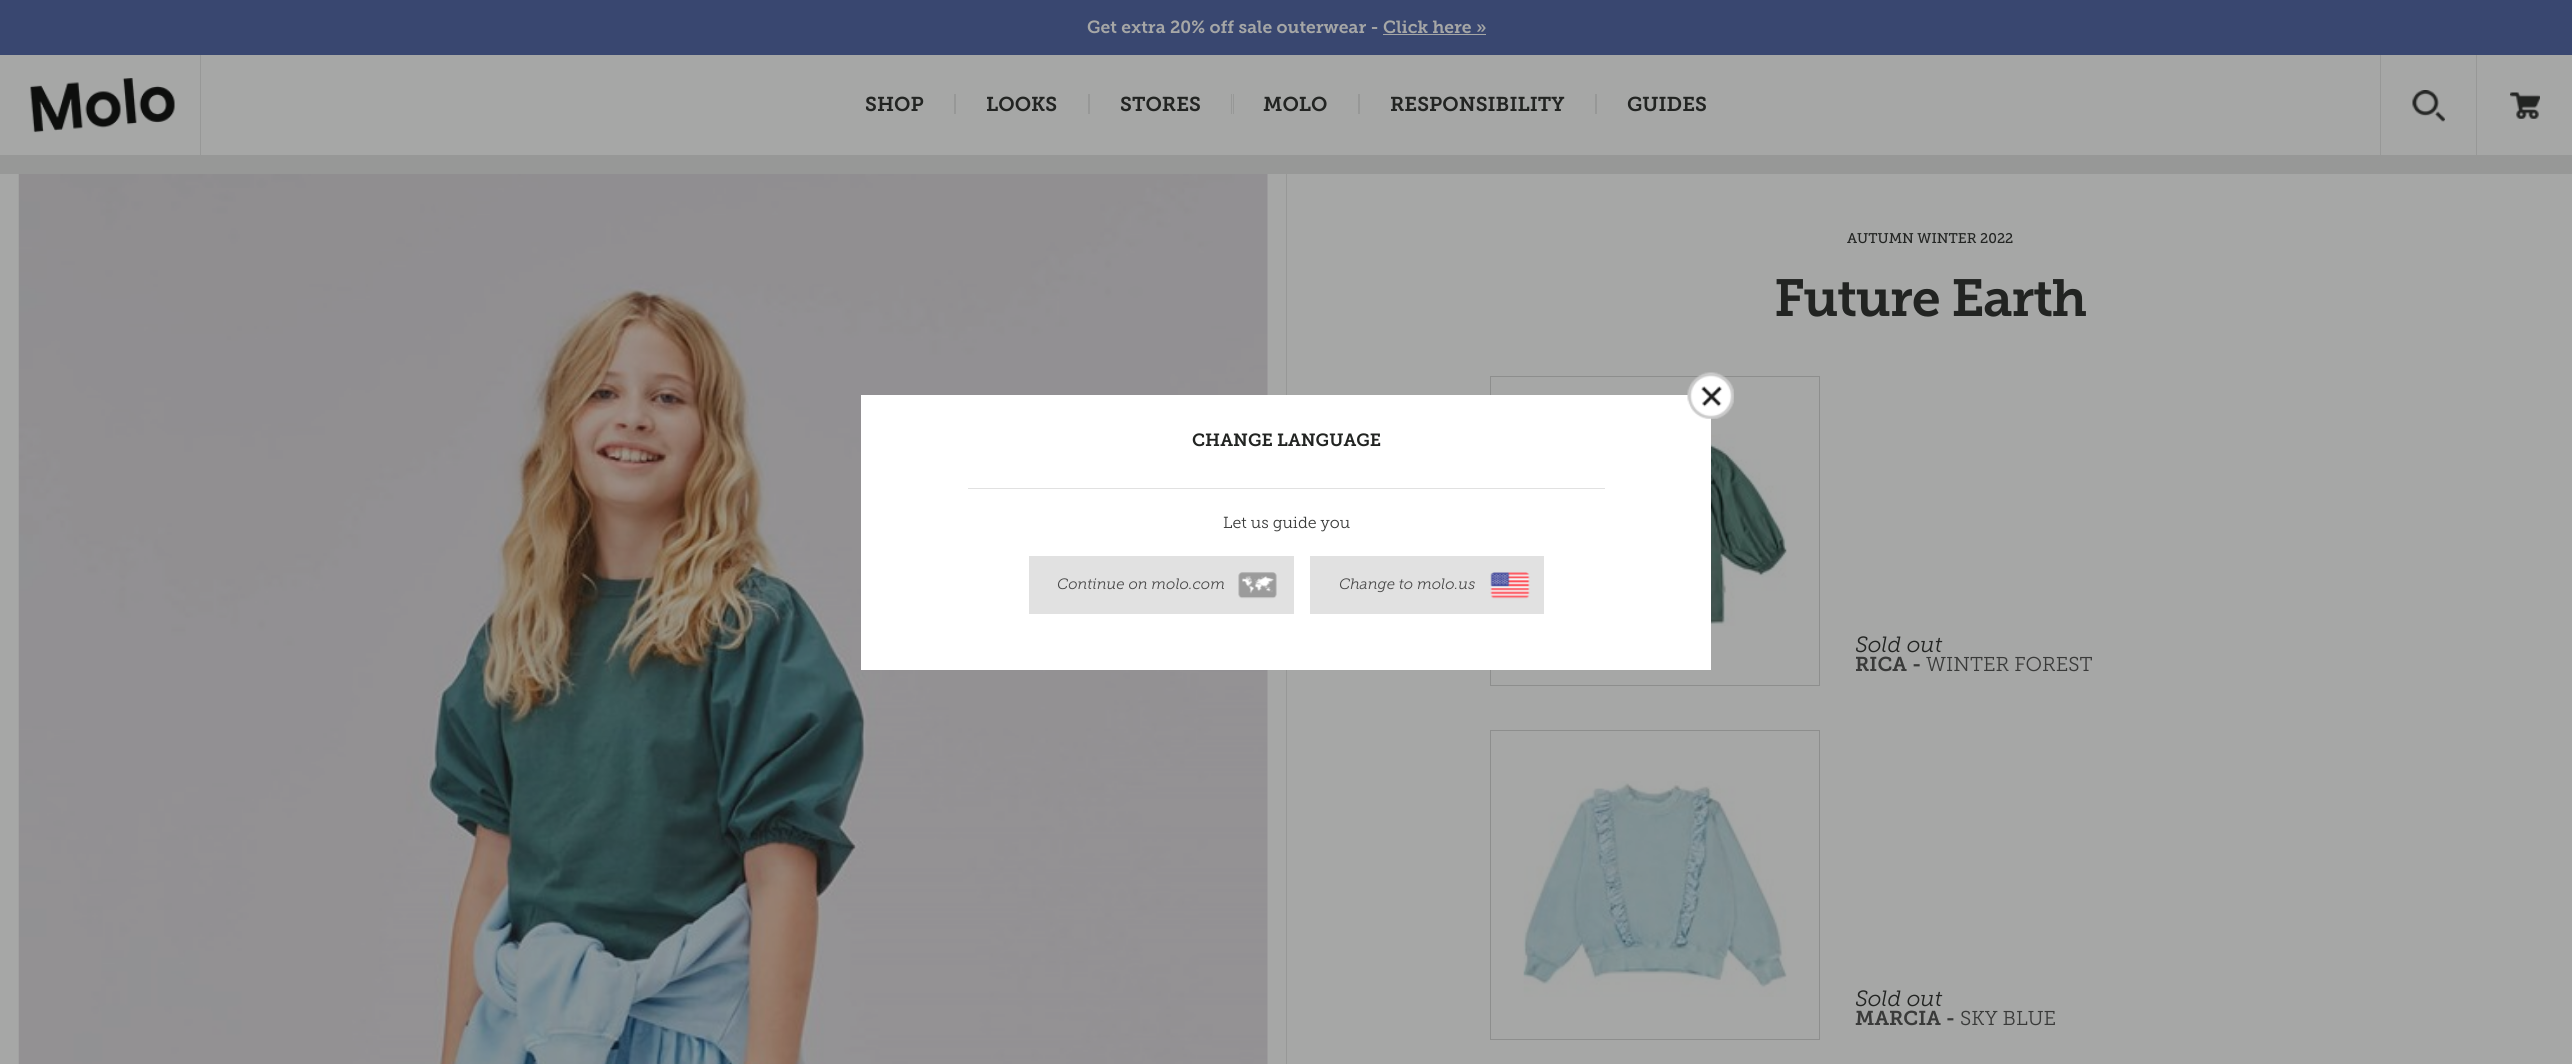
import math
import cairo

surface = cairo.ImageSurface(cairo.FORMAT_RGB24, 2572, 1064)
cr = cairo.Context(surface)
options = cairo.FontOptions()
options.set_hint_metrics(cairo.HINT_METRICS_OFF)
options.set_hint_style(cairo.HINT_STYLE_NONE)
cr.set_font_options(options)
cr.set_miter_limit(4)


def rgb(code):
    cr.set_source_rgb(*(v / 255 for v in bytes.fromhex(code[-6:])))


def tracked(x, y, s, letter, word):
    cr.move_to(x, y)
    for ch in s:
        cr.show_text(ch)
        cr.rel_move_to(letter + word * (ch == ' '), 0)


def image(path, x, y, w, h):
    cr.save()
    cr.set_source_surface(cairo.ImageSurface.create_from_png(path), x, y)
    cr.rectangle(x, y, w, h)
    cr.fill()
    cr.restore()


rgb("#a6a7a6")
cr.paint()
for x, y, w, h, color in [
    (0, 0, 2572, 55, "#394770"),
    (1383, 34, 103, 1, "#a6a7a6"),
    (0, 155, 2572, 19, "#979897"),
]:
    rgb(color)
    cr.rectangle(x, y, w, h)
    cr.fill()
image("img/1.png", 30, 78, 145, 55)
for x, y, w, h, color in [
    (200, 55, 1, 100, "#979897"),
    (954, 94, 2, 20, "#979897"),
    (1088, 94, 2, 20, "#979897"),
    (1233, 94, 1, 20, "#979897"),
    (1231, 94, 1, 20, "#979897"),
    (1358, 94, 2, 20, "#979897"),
    (1595, 94, 2, 20, "#979897"),
]:
    rgb(color)
    cr.rectangle(x, y, w, h)
    cr.fill()
image("img/2.png", 2412, 90, 33, 32)
cr.rectangle(2380, 55, 1, 100)
cr.fill()
image("img/3.png", 2510, 92, 30, 27)
cr.rectangle(2476, 55, 1, 100)
cr.fill()
cr.rectangle(1286, 174, 1, 890)
cr.fill()
image("img/4.png", 18, 174, 1250, 890)
image("img/5.png", 1711, 434, 76, 192)
cr.rectangle(1490.5, 376.5, 329, 309)
rgb("#8d8e8d")
cr.set_line_width(1)
cr.stroke()
image("img/6.png", 1523, 781, 264, 216)
cr.rectangle(1490.5, 730.5, 329, 309)
cr.stroke()
rgb("#ffffff")
cr.rectangle(861, 395, 850, 275)
cr.fill()
image("img/7.png", 1687, 372, 47, 47)
rgb("#e1e1e1")
cr.rectangle(968, 488, 637, 1)
cr.fill()
cr.rectangle(1029, 556, 265, 58)
cr.fill()
image("img/8.png", 1238, 572, 39, 27)
cr.rectangle(1310, 556, 234, 58)
cr.fill()
image("img/9.png", 1490, 572, 40, 27)
cr.select_font_face("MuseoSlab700")
cr.set_font_size(17.5)
rgb("#a6a7a6")
cr.move_to(1087, 33)
cr.show_text("Get extra 20% off sale outerwear - Click here »")
cr.set_font_size(20)
rgb("#222422")
for x, y, s in [
    (865, 111, "SHOP"),
    (986, 111, "LOOKS"),
    (1120, 111, "STORES"),
    (1263, 111, "MOLO"),
    (1390, 111, "RESPONSIBILITY"),
    (1627, 111, "GUIDES"),
]:
    cr.move_to(x, y)
    cr.show_text(s)
cr.select_font_face("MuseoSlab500")
cr.set_font_size(14)
cr.move_to(1847, 243)
cr.show_text("AUTUMN WINTER 2022")
cr.select_font_face("MuseoSlab700")
cr.set_font_size(52)
tracked(1774, 316, "Future Earth", -1.25, 0)
cr.select_font_face("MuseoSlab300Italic")
cr.set_font_size(22)
cr.move_to(1855, 652)
cr.show_text("Sold out")
cr.select_font_face("MuseoSlab700")
cr.set_font_size(20)
rgb("#393a39")
cr.move_to(1855, 671)
cr.show_text("RICA -")
cr.select_font_face("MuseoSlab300")
cr.move_to(1926, 671)
cr.show_text("WINTER FOREST")
cr.select_font_face("MuseoSlab300Italic")
cr.set_font_size(22)
rgb("#222422")
cr.move_to(1855, 1006)
cr.show_text("Sold out")
cr.select_font_face("MuseoSlab700")
cr.set_font_size(20)
rgb("#393a39")
cr.move_to(1855, 1025)
cr.show_text("MARCIA -")
cr.select_font_face("MuseoSlab300")
cr.move_to(1960, 1025)
cr.show_text("SKY BLUE")
cr.select_font_face("MuseoSlab700")
cr.set_font_size(17.6)
rgb("#222422")
cr.move_to(1192, 446)
cr.show_text("CHANGE LANGUAGE")
cr.select_font_face("MuseoSlab300")
cr.set_font_size(16)
rgb("#393a39")
cr.move_to(1223, 528)
cr.show_text("Let us guide you")
cr.select_font_face("MuseoSlab300Italic")
cr.set_font_size(15)
rgb("#494949")
cr.move_to(1057, 589)
cr.show_text("Continue on molo.com")
cr.move_to(1339, 589)
cr.show_text("Change to molo.us")
surface.write_to_png("page.png")
